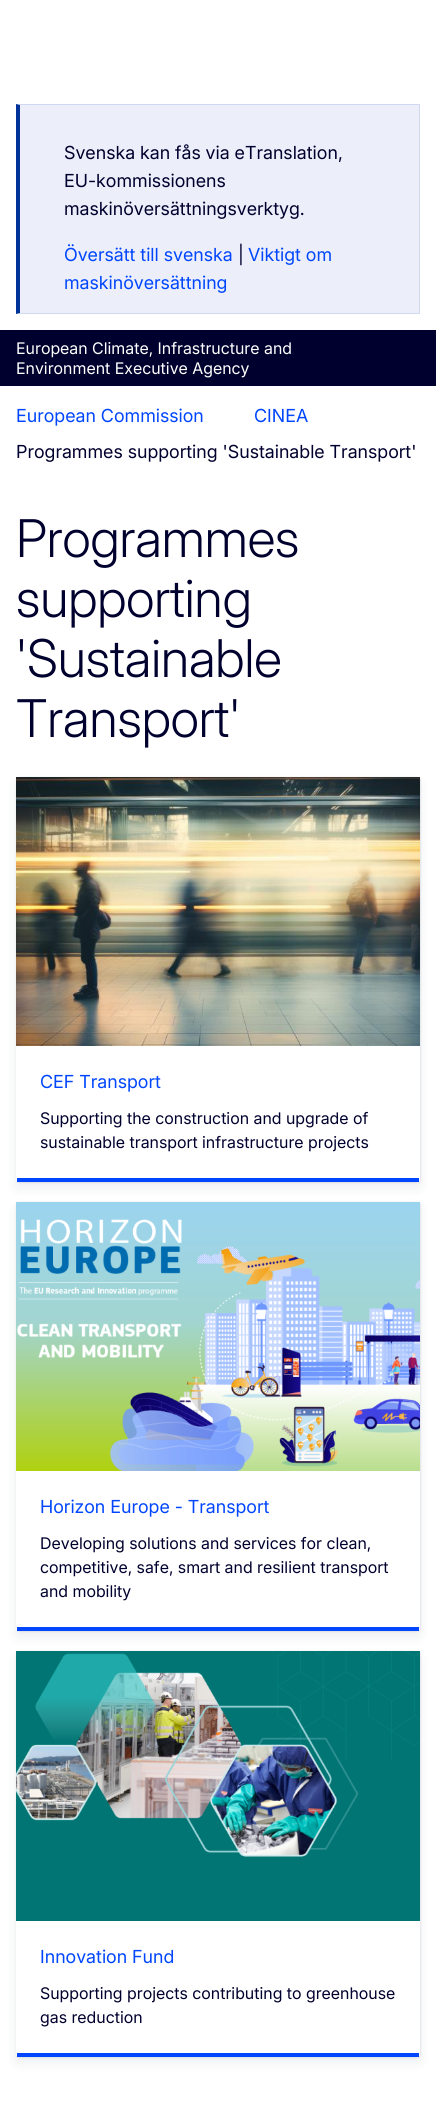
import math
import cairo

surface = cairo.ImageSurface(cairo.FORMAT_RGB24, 436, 2111)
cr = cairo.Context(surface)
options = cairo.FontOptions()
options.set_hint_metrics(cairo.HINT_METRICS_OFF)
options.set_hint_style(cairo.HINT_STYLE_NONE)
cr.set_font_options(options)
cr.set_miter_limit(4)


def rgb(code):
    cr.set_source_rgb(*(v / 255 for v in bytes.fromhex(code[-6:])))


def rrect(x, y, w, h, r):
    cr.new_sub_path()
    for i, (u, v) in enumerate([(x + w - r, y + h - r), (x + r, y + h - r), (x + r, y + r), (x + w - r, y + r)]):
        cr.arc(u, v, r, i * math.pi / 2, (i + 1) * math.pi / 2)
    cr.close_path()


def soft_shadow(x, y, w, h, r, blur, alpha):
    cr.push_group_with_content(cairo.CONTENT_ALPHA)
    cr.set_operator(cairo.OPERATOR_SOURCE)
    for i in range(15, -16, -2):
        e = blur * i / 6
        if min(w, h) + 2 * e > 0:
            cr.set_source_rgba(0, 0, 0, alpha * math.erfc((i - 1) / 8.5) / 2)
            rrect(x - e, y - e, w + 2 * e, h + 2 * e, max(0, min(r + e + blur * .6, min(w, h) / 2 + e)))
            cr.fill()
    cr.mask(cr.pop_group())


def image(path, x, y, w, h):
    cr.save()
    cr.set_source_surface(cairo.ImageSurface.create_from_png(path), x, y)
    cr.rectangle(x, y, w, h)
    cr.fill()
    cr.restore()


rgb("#ffffff")
cr.paint()
rgb("#eceff9")
cr.rectangle(20, 105, 399, 208)
cr.fill()
rgb("#d1d9f1")
cr.new_path()
cr.move_to(16, 104)
cr.line_to(420, 104)
cr.line_to(419, 105)
cr.line_to(20, 105)
cr.close_path()
cr.fill()
cr.rectangle(419, 104, 1, 210)
cr.fill()
cr.new_path()
cr.move_to(420, 314)
cr.line_to(16, 314)
cr.line_to(20, 313)
cr.line_to(419, 313)
cr.close_path()
cr.fill()
rgb("#003399")
cr.new_path()
cr.move_to(16, 314)
cr.line_to(16, 104)
cr.line_to(20, 105)
cr.line_to(20, 313)
cr.close_path()
cr.fill()
rgb("#00002e")
cr.rectangle(0, 330, 436, 56)
cr.fill()
rgb("#18274b")
soft_shadow(16, 783, 404, 405, 2, 6, 0.08)
soft_shadow(16, 777, 405, 406, 2.5, 0.5, 0.08)
rgb("#ffffff")
cr.new_path()
cr.move_to(16, 777)
cr.line_to(420, 777)
cr.line_to(420, 1180)
cr.curve_to(420, 1181, 419, 1182, 418, 1182)
cr.line_to(18, 1182)
cr.curve_to(17, 1182, 16, 1181, 16, 1180)
cr.close_path()
cr.fill()
rgb("#0046ff")
cr.rectangle(17, 1178, 402, 4)
cr.fill()
image("img/1.png", 16, 777, 404, 269)
rgb("#18274b")
soft_shadow(16, 1208, 404, 429, 2, 6, 0.08)
soft_shadow(16, 1202, 405, 430, 2.5, 0.5, 0.08)
rgb("#ffffff")
cr.new_path()
cr.move_to(16, 1202)
cr.line_to(420, 1202)
cr.line_to(420, 1629)
cr.curve_to(420, 1630, 419, 1631, 418, 1631)
cr.line_to(18, 1631)
cr.curve_to(17, 1631, 16, 1630, 16, 1629)
cr.close_path()
cr.fill()
rgb("#0046ff")
cr.rectangle(17, 1627, 402, 4)
cr.fill()
image("img/2.png", 16, 1202, 404, 269)
rgb("#18274b")
soft_shadow(16, 1657, 404, 406, 2, 6, 0.08)
soft_shadow(16, 1651, 405, 407, 2.5, 0.5, 0.08)
rgb("#ffffff")
cr.new_path()
cr.move_to(16, 1651)
cr.line_to(420, 1651)
cr.line_to(420, 2055)
cr.curve_to(420, 2056, 419, 2057, 418, 2057)
cr.line_to(18, 2057)
cr.curve_to(17, 2057, 16, 2056, 16, 2055)
cr.close_path()
cr.fill()
rgb("#0046ff")
cr.rectangle(17, 2053, 402, 4)
cr.fill()
image("img/3.png", 16, 1651, 404, 270)
cr.select_font_face("Inter")
cr.set_font_size(18)
rgb("#00002e")
for x, y, s in [
    (64, 159, "Svenska kan fås via eTranslation,"),
    (64, 187, "EU-kommissionens"),
    (64, 215, "maskinöversättningsverktyg."),
]:
    cr.move_to(x, y)
    cr.show_text(s)
rgb("#0046ff")
cr.move_to(64, 261)
cr.show_text("Översätt till svenska")
rgb("#00002e")
cr.move_to(238, 261)
cr.show_text("|")
rgb("#0046ff")
cr.move_to(248, 261)
cr.show_text("Viktigt om")
cr.move_to(64, 289)
cr.show_text("maskinöversättning")
cr.select_font_face("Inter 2")
cr.set_font_size(16)
rgb("#ffffff")
cr.move_to(16, 354)
cr.show_text("European Climate, Infrastructure and")
cr.move_to(16, 374)
cr.show_text("Environment Executive Agency")
cr.select_font_face("Inter")
cr.set_font_size(18)
rgb("#0046ff")
cr.move_to(16, 422)
cr.show_text("European Commission")
cr.move_to(254, 422)
cr.show_text("CINEA")
rgb("#00002e")
cr.move_to(16, 458)
cr.show_text("Programmes supporting 'Sustainable Transport'")
cr.select_font_face("Inter Light")
cr.set_font_size(52)
for x, y, s in [
    (16, 557, "Programmes"),
    (16, 617, "supporting"),
    (16, 677, "'Sustainable"),
    (16, 737, "Transport'"),
]:
    cr.move_to(x, y)
    cr.show_text(s)
cr.select_font_face("Inter")
cr.set_font_size(18)
rgb("#0046ff")
cr.move_to(40, 1088)
cr.show_text("CEF Transport")
cr.select_font_face("Inter 2")
cr.set_font_size(16)
rgb("#00002e")
cr.move_to(40, 1124)
cr.show_text("Supporting the construction and upgrade of")
cr.move_to(40, 1148)
cr.show_text("sustainable transport infrastructure projects")
cr.select_font_face("Inter")
cr.set_font_size(18)
rgb("#0046ff")
cr.move_to(40, 1513)
cr.show_text("Horizon Europe - Transport")
cr.select_font_face("Inter 2")
cr.set_font_size(16)
rgb("#00002e")
for x, y, s in [
    (40, 1549, "Developing solutions and services for clean,"),
    (40, 1573, "competitive, safe, smart and resilient transport"),
    (40, 1597, "and mobility"),
]:
    cr.move_to(x, y)
    cr.show_text(s)
cr.select_font_face("Inter")
cr.set_font_size(18)
rgb("#0046ff")
cr.move_to(40, 1963)
cr.show_text("Innovation Fund")
cr.select_font_face("Inter 2")
cr.set_font_size(16)
rgb("#00002e")
cr.move_to(40, 1999)
cr.show_text("Supporting projects contributing to greenhouse")
cr.move_to(40, 2023)
cr.show_text("gas reduction")
surface.write_to_png("page.png")
